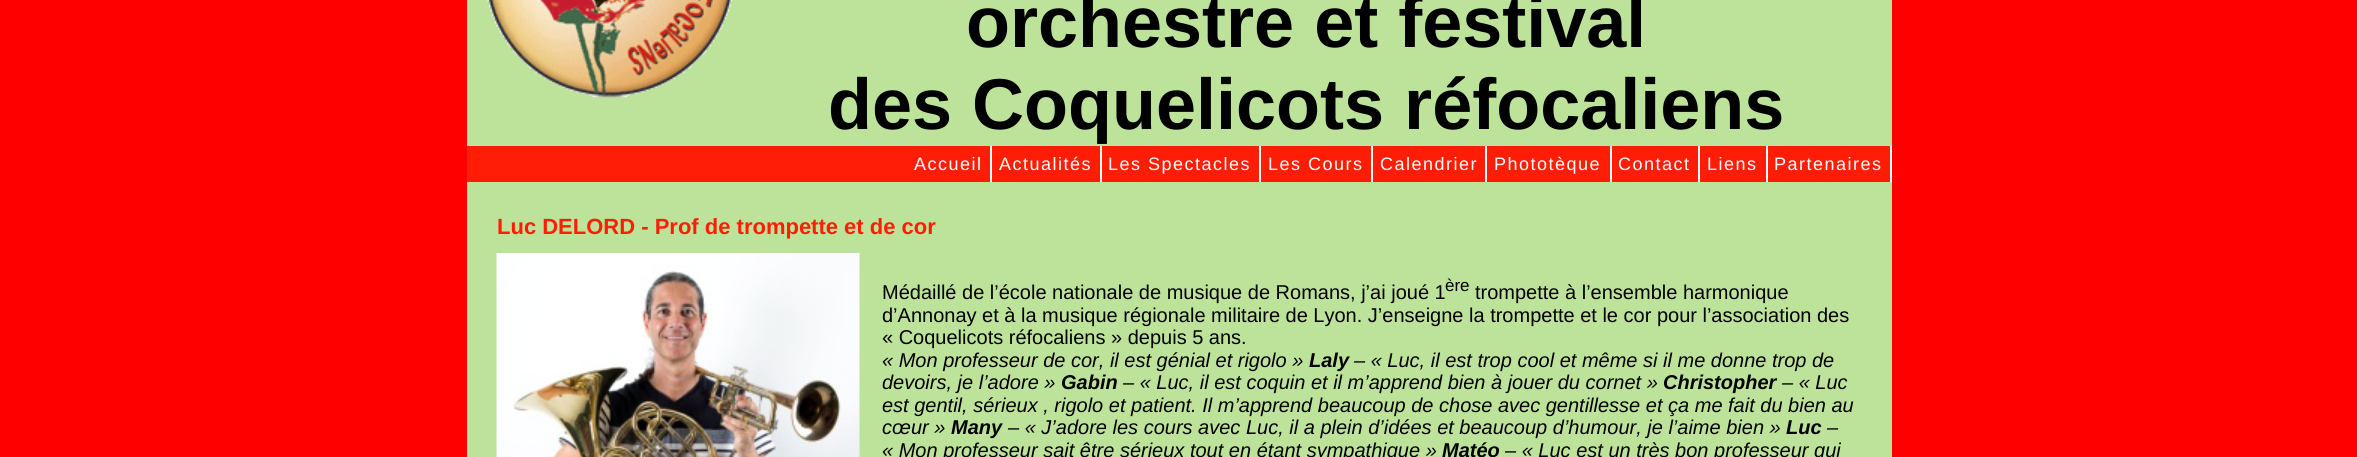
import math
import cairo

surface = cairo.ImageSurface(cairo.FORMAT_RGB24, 2357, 457)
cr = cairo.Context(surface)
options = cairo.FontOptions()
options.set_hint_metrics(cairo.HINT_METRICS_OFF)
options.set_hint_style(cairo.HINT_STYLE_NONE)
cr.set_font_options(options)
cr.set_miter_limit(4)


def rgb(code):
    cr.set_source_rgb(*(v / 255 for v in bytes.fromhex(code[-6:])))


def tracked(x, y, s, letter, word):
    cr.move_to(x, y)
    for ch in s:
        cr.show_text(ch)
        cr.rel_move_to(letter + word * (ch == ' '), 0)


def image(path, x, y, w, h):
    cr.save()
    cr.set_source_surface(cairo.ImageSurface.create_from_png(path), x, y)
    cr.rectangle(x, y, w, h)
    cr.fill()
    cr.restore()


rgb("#ff0000")
cr.paint()
rgb("#bde29a")
cr.rectangle(467, 0, 1425, 457)
cr.fill()
image("img/1.png", 487, 0, 246, 98)
for x, y, w, h, color in [
    (467, 146, 1423, 36, "#ff1e05"),
    (990, 146, 2, 36, "#ffffff"),
    (1100, 146, 2, 36, "#ffffff"),
    (1259, 146, 2, 36, "#ffffff"),
    (1371, 146, 2, 36, "#ffffff"),
    (1485, 146, 2, 36, "#ffffff"),
    (1610, 146, 2, 36, "#ffffff"),
    (1698, 146, 2, 36, "#ffffff"),
    (1766, 146, 2, 36, "#ffffff"),
    (1890, 146, 2, 36, "#ffffff"),
]:
    rgb(color)
    cr.rectangle(x, y, w, h)
    cr.fill()
image("img/2.png", 496, 253, 364, 204)
cr.select_font_face("Liberation Sans", cairo.FONT_SLANT_NORMAL, cairo.FONT_WEIGHT_BOLD)
cr.set_font_size(72)
rgb("#000000")
cr.move_to(966, 47)
cr.show_text("orchestre et festival")
cr.move_to(828, 129)
cr.show_text("des Coquelicots réfocaliens")
cr.select_font_face("Liberation Sans")
cr.set_font_size(18)
rgb("#ffffff")
for x, y, s in [
    (914, 170, "Accueil"),
    (999, 170, "Actualités"),
    (1108, 170, "Les Spectacles"),
    (1268, 170, "Les Cours"),
    (1380, 170, "Calendrier"),
    (1494, 170, "Phototèque"),
    (1618, 170, "Contact"),
    (1707, 170, "Liens"),
    (1774, 170, "Partenaires"),
]:
    tracked(x, y, s, 1.5, 0)
cr.select_font_face("Liberation Sans", cairo.FONT_SLANT_NORMAL, cairo.FONT_WEIGHT_BOLD)
cr.set_font_size(22)
rgb("#ff1e05")
cr.move_to(497, 234)
cr.show_text("Luc DELORD - Prof de trompette et de cor")
cr.select_font_face("Liberation Sans")
cr.set_font_size(20)
rgb("#000000")
cr.move_to(882, 299)
cr.show_text("Médaillé de l’école nationale de musique de Romans, j’ai joué 1")
cr.set_font_size(17)
cr.move_to(1445, 291)
cr.show_text("ère")
cr.set_font_size(20)
for x, y, s in [
    (1475, 299, "trompette à l’ensemble harmonique"),
    (882, 322, "d’Annonay et à la musique régionale militaire de Lyon. J’enseigne la trompette et le cor pour l’association des"),
    (882, 344, "« Coquelicots réfocaliens » depuis 5 ans."),
]:
    cr.move_to(x, y)
    cr.show_text(s)
cr.select_font_face("Liberation Sans", cairo.FONT_SLANT_ITALIC)
cr.move_to(882, 367)
cr.show_text("« Mon professeur de cor, il est génial et rigolo »")
cr.select_font_face("Liberation Sans", cairo.FONT_SLANT_ITALIC, cairo.FONT_WEIGHT_BOLD)
cr.move_to(1309, 367)
cr.show_text("Laly")
cr.select_font_face("Liberation Sans", cairo.FONT_SLANT_ITALIC)
cr.move_to(1354, 367)
cr.show_text("– « Luc, il est trop cool et même si il me donne trop de")
cr.move_to(882, 389)
cr.show_text("devoirs, je l’adore »")
cr.select_font_face("Liberation Sans", cairo.FONT_SLANT_ITALIC, cairo.FONT_WEIGHT_BOLD)
cr.move_to(1061, 389)
cr.show_text("Gabin")
cr.select_font_face("Liberation Sans", cairo.FONT_SLANT_ITALIC)
cr.move_to(1123, 389)
cr.show_text("– « Luc, il est coquin et il m’apprend bien à jouer du cornet »")
cr.select_font_face("Liberation Sans", cairo.FONT_SLANT_ITALIC, cairo.FONT_WEIGHT_BOLD)
cr.move_to(1663, 389)
cr.show_text("Christopher")
cr.select_font_face("Liberation Sans", cairo.FONT_SLANT_ITALIC)
for x, y, s in [
    (1782, 389, "– « Luc"),
    (882, 412, "est gentil, sérieux , rigolo et patient. Il m’apprend beaucoup de chose avec gentillesse et ça me fait du bien au"),
    (882, 434, "cœur »"),
]:
    cr.move_to(x, y)
    cr.show_text(s)
cr.select_font_face("Liberation Sans", cairo.FONT_SLANT_ITALIC, cairo.FONT_WEIGHT_BOLD)
cr.move_to(951, 434)
cr.show_text("Many")
cr.select_font_face("Liberation Sans", cairo.FONT_SLANT_ITALIC)
cr.move_to(1008, 434)
cr.show_text("– « J’adore les cours avec Luc, il a plein d’idées et beaucoup d’humour, je l’aime bien »")
cr.select_font_face("Liberation Sans", cairo.FONT_SLANT_ITALIC, cairo.FONT_WEIGHT_BOLD)
cr.move_to(1786, 434)
cr.show_text("Luc")
cr.select_font_face("Liberation Sans", cairo.FONT_SLANT_ITALIC)
cr.move_to(1827, 434)
cr.show_text("–")
cr.move_to(882, 457)
cr.show_text("« Mon professeur sait être sérieux tout en étant sympathique »")
cr.select_font_face("Liberation Sans", cairo.FONT_SLANT_ITALIC, cairo.FONT_WEIGHT_BOLD)
cr.move_to(1442, 457)
cr.show_text("Matéo")
cr.select_font_face("Liberation Sans", cairo.FONT_SLANT_ITALIC)
cr.move_to(1505, 457)
cr.show_text("– « Luc est un très bon professeur qui")
surface.write_to_png("page.png")
